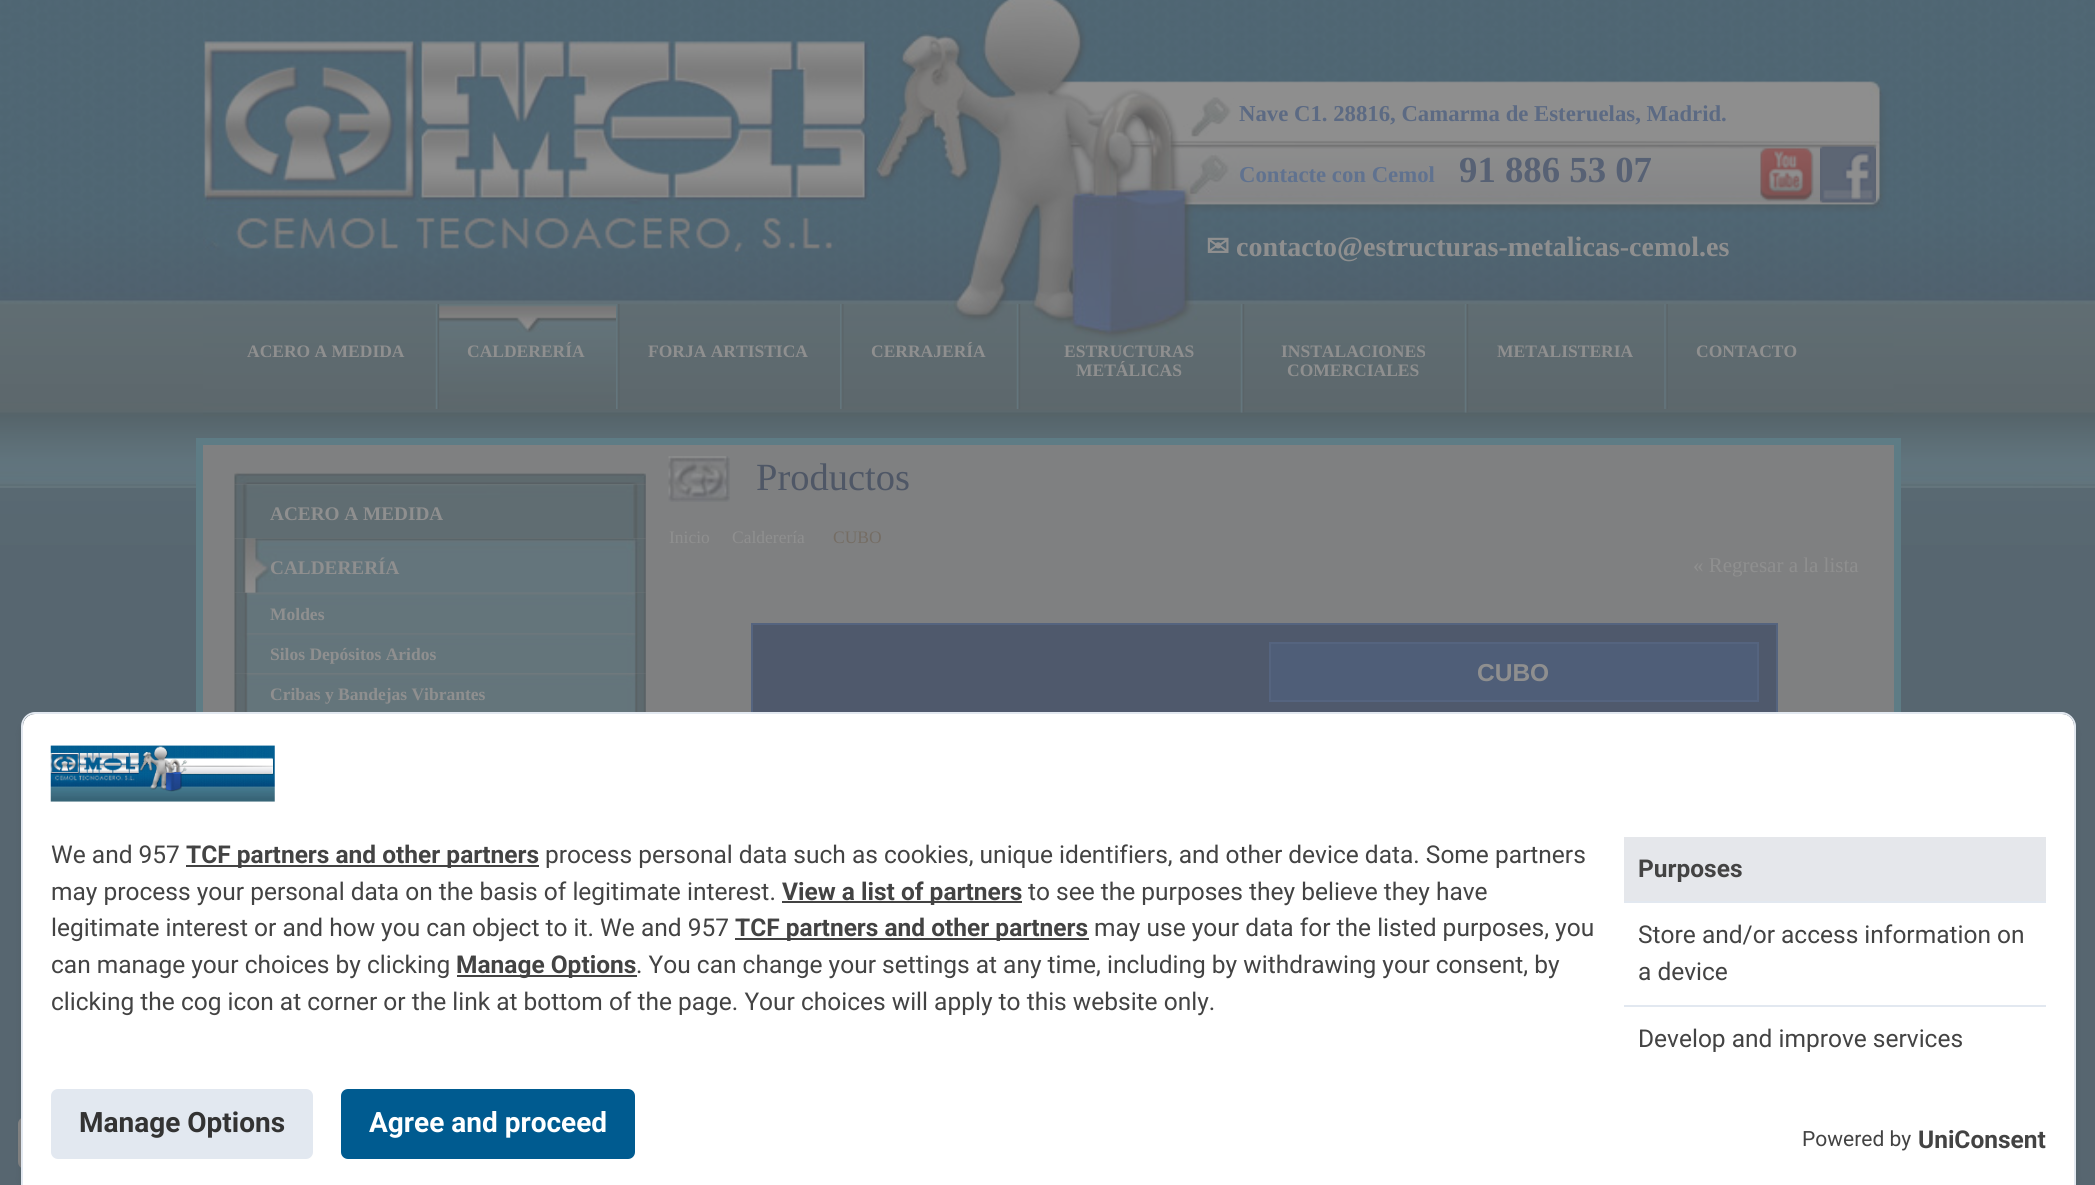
import math
import cairo

surface = cairo.ImageSurface(cairo.FORMAT_RGB24, 2095, 1185)
cr = cairo.Context(surface)
options = cairo.FontOptions()
options.set_hint_metrics(cairo.HINT_METRICS_OFF)
options.set_hint_style(cairo.HINT_STYLE_NONE)
cr.set_font_options(options)
cr.set_miter_limit(4)


def rgb(code):
    cr.set_source_rgb(*(v / 255 for v in bytes.fromhex(code[-6:])))


def rrect(x, y, w, h, r):
    cr.new_sub_path()
    for i, (u, v) in enumerate([(x + w - r, y + h - r), (x + r, y + h - r), (x + r, y + r), (x + w - r, y + r)]):
        cr.arc(u, v, r, i * math.pi / 2, (i + 1) * math.pi / 2)
    cr.close_path()


def soft_shadow(x, y, w, h, r, blur, alpha):
    cr.push_group_with_content(cairo.CONTENT_ALPHA)
    cr.set_operator(cairo.OPERATOR_SOURCE)
    for i in range(15, -16, -2):
        e = blur * i / 6
        if min(w, h) + 2 * e > 0:
            cr.set_source_rgba(0, 0, 0, alpha * math.erfc((i - 1) / 8.5) / 2)
            rrect(x - e, y - e, w + 2 * e, h + 2 * e, max(0, min(r + e + blur * .6, min(w, h) / 2 + e)))
            cr.fill()
    cr.mask(cr.pop_group())


def image(path, x, y, w, h):
    cr.save()
    cr.set_source_surface(cairo.ImageSurface.create_from_png(path), x, y)
    cr.rectangle(x, y, w, h)
    cr.fill()
    cr.restore()


rgb("#576670")
cr.paint()
image("img/1.png", 0, 487, 2095, 58)
image("img/2.png", 0, 0, 2095, 488)
image("img/3.png", 203, 0, 1691, 416)
image("img/4.png", 1760, 147, 54, 55)
image("img/5.png", 1820, 146, 56, 57)
image("img/6.png", 435, 304, 5, 105)
image("img/7.png", 616, 304, 4, 105)
image("img/8.png", 439, 304, 177, 105)
image("img/7.png", 840, 304, 4, 105)
image("img/9.png", 1016, 304, 5, 105)
image("img/10.png", 1240, 304, 5, 109)
image("img/11.png", 1464, 304, 5, 109)
image("img/12.png", 1664, 304, 4, 105)
for x, y, w, h, color in [
    (203, 445, 1691, 267, "#7f8081"),
    (196, 438, 1705, 7, "#5e7c85"),
    (1894, 438, 7, 274, "#5e7c85"),
    (196, 438, 7, 274, "#5e7c85"),
]:
    rgb(color)
    cr.rectangle(x, y, w, h)
    cr.fill()
image("img/13.png", 234, 472, 412, 13)
image("img/14.png", 234, 484, 412, 55)
image("img/15.png", 234, 538, 412, 55)
image("img/16.png", 234, 592, 412, 41)
image("img/17.png", 234, 633, 412, 41)
image("img/18.png", 234, 673, 412, 39)
image("img/19.png", 668, 456, 62, 46)
rgb("#4f596c")
cr.rectangle(753, 625, 1023, 87)
cr.fill()
cr.rectangle(752, 624, 1025, 506)
rgb("#55647f")
cr.stroke()
rgb("#4f5e78")
cr.rectangle(1270, 643, 488, 58)
cr.fill_preserve()
rgb("#55647f")
cr.stroke()
gradient = cairo.LinearGradient(22, 1172, 66, 1113)
gradient.add_color_stop_rgba(0, 0.506, 0.506, 0.506, 1)
gradient.add_color_stop_rgba(1, 0.529, 0.529, 0.529, 1)
cr.set_source(gradient)
rrect(18, 1117, 52, 52, 7)
cr.fill()
rgb("#000000")
soft_shadow(23, 721, 2051, 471, 12, 5, 0.1)
rgb("#ffffff")
cr.new_path()
cr.move_to(35, 714)
cr.line_to(2062, 714)
cr.curve_to(2068.5, 714, 2074, 719.5, 2074, 726)
cr.line_to(2074, 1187)
cr.line_to(23, 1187)
cr.line_to(23, 726)
cr.curve_to(23, 719.5, 28.5, 714, 35, 714)
cr.close_path()
cr.fill()
rgb("#e2e8f0")
cr.set_fill_rule(cairo.FILL_RULE_EVEN_ODD)
cr.new_path()
cr.move_to(35, 712)
cr.line_to(2062, 712)
cr.curve_to(2069, 712, 2076, 719, 2076, 726)
cr.line_to(2076, 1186)
cr.line_to(21, 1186)
cr.line_to(21, 726)
cr.curve_to(21, 719, 27, 712, 35, 712)
cr.close_path()
cr.move_to(35, 714)
cr.line_to(2062, 714)
cr.curve_to(2068, 714, 2074, 719, 2074, 726)
cr.line_to(2074, 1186)
cr.line_to(23, 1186)
cr.line_to(23, 726)
cr.curve_to(23, 719, 28, 714, 35, 714)
cr.close_path()
cr.fill()
image("img/20.png", 50, 745, 225, 57)
for x, y, w, h, color in [
    (186, 865, 353, 2, "#434343"),
    (782, 901, 240, 2, "#434343"),
    (735, 938, 354, 2, "#434343"),
    (457, 975, 180, 2, "#434343"),
    (1624, 837, 422, 64, "#e5e7eb"),
    (1624, 901, 422, 2, "#e2e8f0"),
    (1624, 1005, 422, 2, "#e2e8f0"),
]:
    rgb(color)
    cr.rectangle(x, y, w, h)
    cr.fill()
rrect(51, 1089, 262, 70, 7)
cr.fill()
rgb("#005b90")
rrect(341, 1089, 294, 70, 7)
cr.fill()
cr.select_font_face("Liberation Serif", cairo.FONT_SLANT_NORMAL, cairo.FONT_WEIGHT_BOLD)
cr.set_font_size(22.75)
rgb("#5c6a83")
cr.move_to(1239, 121)
cr.show_text("Nave C1. 28816, Camarma de Esteruelas, Madrid.")
rgb("#60728f")
cr.move_to(1239, 182)
cr.show_text("Contacte con Cemol")
cr.set_font_size(36.75)
rgb("#576174")
cr.move_to(1459, 182)
cr.show_text("91 886 53 07")
cr.select_font_face("DejaVu Sans", cairo.FONT_SLANT_NORMAL, cairo.FONT_WEIGHT_BOLD)
cr.set_font_size(28)
rgb("#8f8f8f")
cr.move_to(1206, 256)
cr.show_text("✉")
cr.select_font_face("Liberation Serif", cairo.FONT_SLANT_NORMAL, cairo.FONT_WEIGHT_BOLD)
cr.move_to(1236, 256)
cr.show_text("contacto@estructuras-metalicas-cemol.es")
cr.set_font_size(17.5)
for x, y, s in [
    (247, 357, "ACERO A MEDIDA"),
    (467, 357, "CALDERERÍA"),
    (648, 357, "FORJA ARTISTICA"),
    (871, 357, "CERRAJERÍA"),
    (1064, 357, "ESTRUCTURAS"),
    (1076, 376, "METÁLICAS"),
    (1281, 357, "INSTALACIONES"),
    (1287, 376, "COMERCIALES"),
    (1497, 357, "METALISTERIA"),
    (1696, 357, "CONTACTO"),
]:
    cr.move_to(x, y)
    cr.show_text(s)
cr.set_font_size(19.25)
cr.move_to(270, 520)
cr.show_text("ACERO A MEDIDA")
cr.move_to(270, 574)
cr.show_text("CALDERERÍA")
cr.set_font_size(17.5)
for x, y, s in [
    (270, 620, "Moldes"),
    (270, 660, "Silos Depósitos Aridos"),
    (270, 700, "Cribas y Bandejas Vibrantes"),
]:
    cr.move_to(x, y)
    cr.show_text(s)
cr.select_font_face("Liberation Serif")
cr.set_font_size(38.5)
rgb("#4f5766")
cr.move_to(756, 490)
cr.show_text("Productos")
cr.set_font_size(17.5)
rgb("#8f8f8f")
cr.move_to(669, 543)
cr.show_text("Inicio")
cr.move_to(732, 543)
cr.show_text("Calderería")
rgb("#756d64")
cr.move_to(833, 543)
cr.show_text("CUBO")
cr.set_font_size(21)
rgb("#8f8f8f")
cr.move_to(1693, 572)
cr.show_text("« Regresar a la lista")
cr.select_font_face("Liberation Sans", cairo.FONT_SLANT_NORMAL, cairo.FONT_WEIGHT_BOLD)
cr.set_font_size(24.5)
cr.move_to(1477, 681)
cr.show_text("CUBO")
cr.select_font_face("Roboto")
rgb("#434343")
cr.move_to(51, 863)
cr.show_text("We and 957")
cr.select_font_face("Roboto", cairo.FONT_SLANT_NORMAL, cairo.FONT_WEIGHT_BOLD)
cr.move_to(186, 863)
cr.show_text("TCF partners and other partners")
cr.select_font_face("Roboto")
cr.move_to(545, 863)
cr.show_text("process personal data such as cookies, unique identifiers, and other device data. Some partners")
cr.move_to(51, 900)
cr.show_text("may process your personal data on the basis of legitimate interest.")
cr.select_font_face("Roboto", cairo.FONT_SLANT_NORMAL, cairo.FONT_WEIGHT_BOLD)
cr.move_to(782, 900)
cr.show_text("View a list of partners")
cr.select_font_face("Roboto")
cr.move_to(1028, 900)
cr.show_text("to see the purposes they believe they have")
cr.move_to(51, 936)
cr.show_text("legitimate interest or and how you can object to it. We and 957")
cr.select_font_face("Roboto", cairo.FONT_SLANT_NORMAL, cairo.FONT_WEIGHT_BOLD)
cr.move_to(735, 936)
cr.show_text("TCF partners and other partners")
cr.select_font_face("Roboto")
cr.move_to(1094, 936)
cr.show_text("may use your data for the listed purposes, you")
cr.move_to(51, 973)
cr.show_text("can manage your choices by clicking")
cr.select_font_face("Roboto", cairo.FONT_SLANT_NORMAL, cairo.FONT_WEIGHT_BOLD)
cr.move_to(456, 973)
cr.show_text("Manage Options")
cr.select_font_face("Roboto")
cr.move_to(636, 973)
cr.show_text(". You can change your settings at any time, including by withdrawing your consent, by")
cr.move_to(51, 1010)
cr.show_text("clicking the cog icon at corner or the link at bottom of the page. Your choices will apply to this website only.")
cr.select_font_face("Roboto", cairo.FONT_SLANT_NORMAL, cairo.FONT_WEIGHT_BOLD)
cr.move_to(1638, 877)
cr.show_text("Purposes")
cr.select_font_face("Roboto")
for x, y, s in [
    (1638, 943, "Store and/or access information on"),
    (1638, 980, "a device"),
    (1638, 1047, "Develop and improve services"),
]:
    cr.move_to(x, y)
    cr.show_text(s)
cr.select_font_face("Roboto", cairo.FONT_SLANT_NORMAL, cairo.FONT_WEIGHT_BOLD)
cr.set_font_size(28)
rgb("#333333")
cr.move_to(79, 1132)
cr.show_text("Manage Options")
rgb("#ffffff")
cr.move_to(369, 1132)
cr.show_text("Agree and proceed")
cr.select_font_face("Roboto")
cr.set_font_size(21)
rgb("#434343")
cr.move_to(1802, 1146)
cr.show_text("Powered by")
cr.select_font_face("Roboto", cairo.FONT_SLANT_NORMAL, cairo.FONT_WEIGHT_BOLD)
cr.set_font_size(24.5)
cr.move_to(1918, 1148)
cr.show_text("UniConsent")
surface.write_to_png("page.png")
